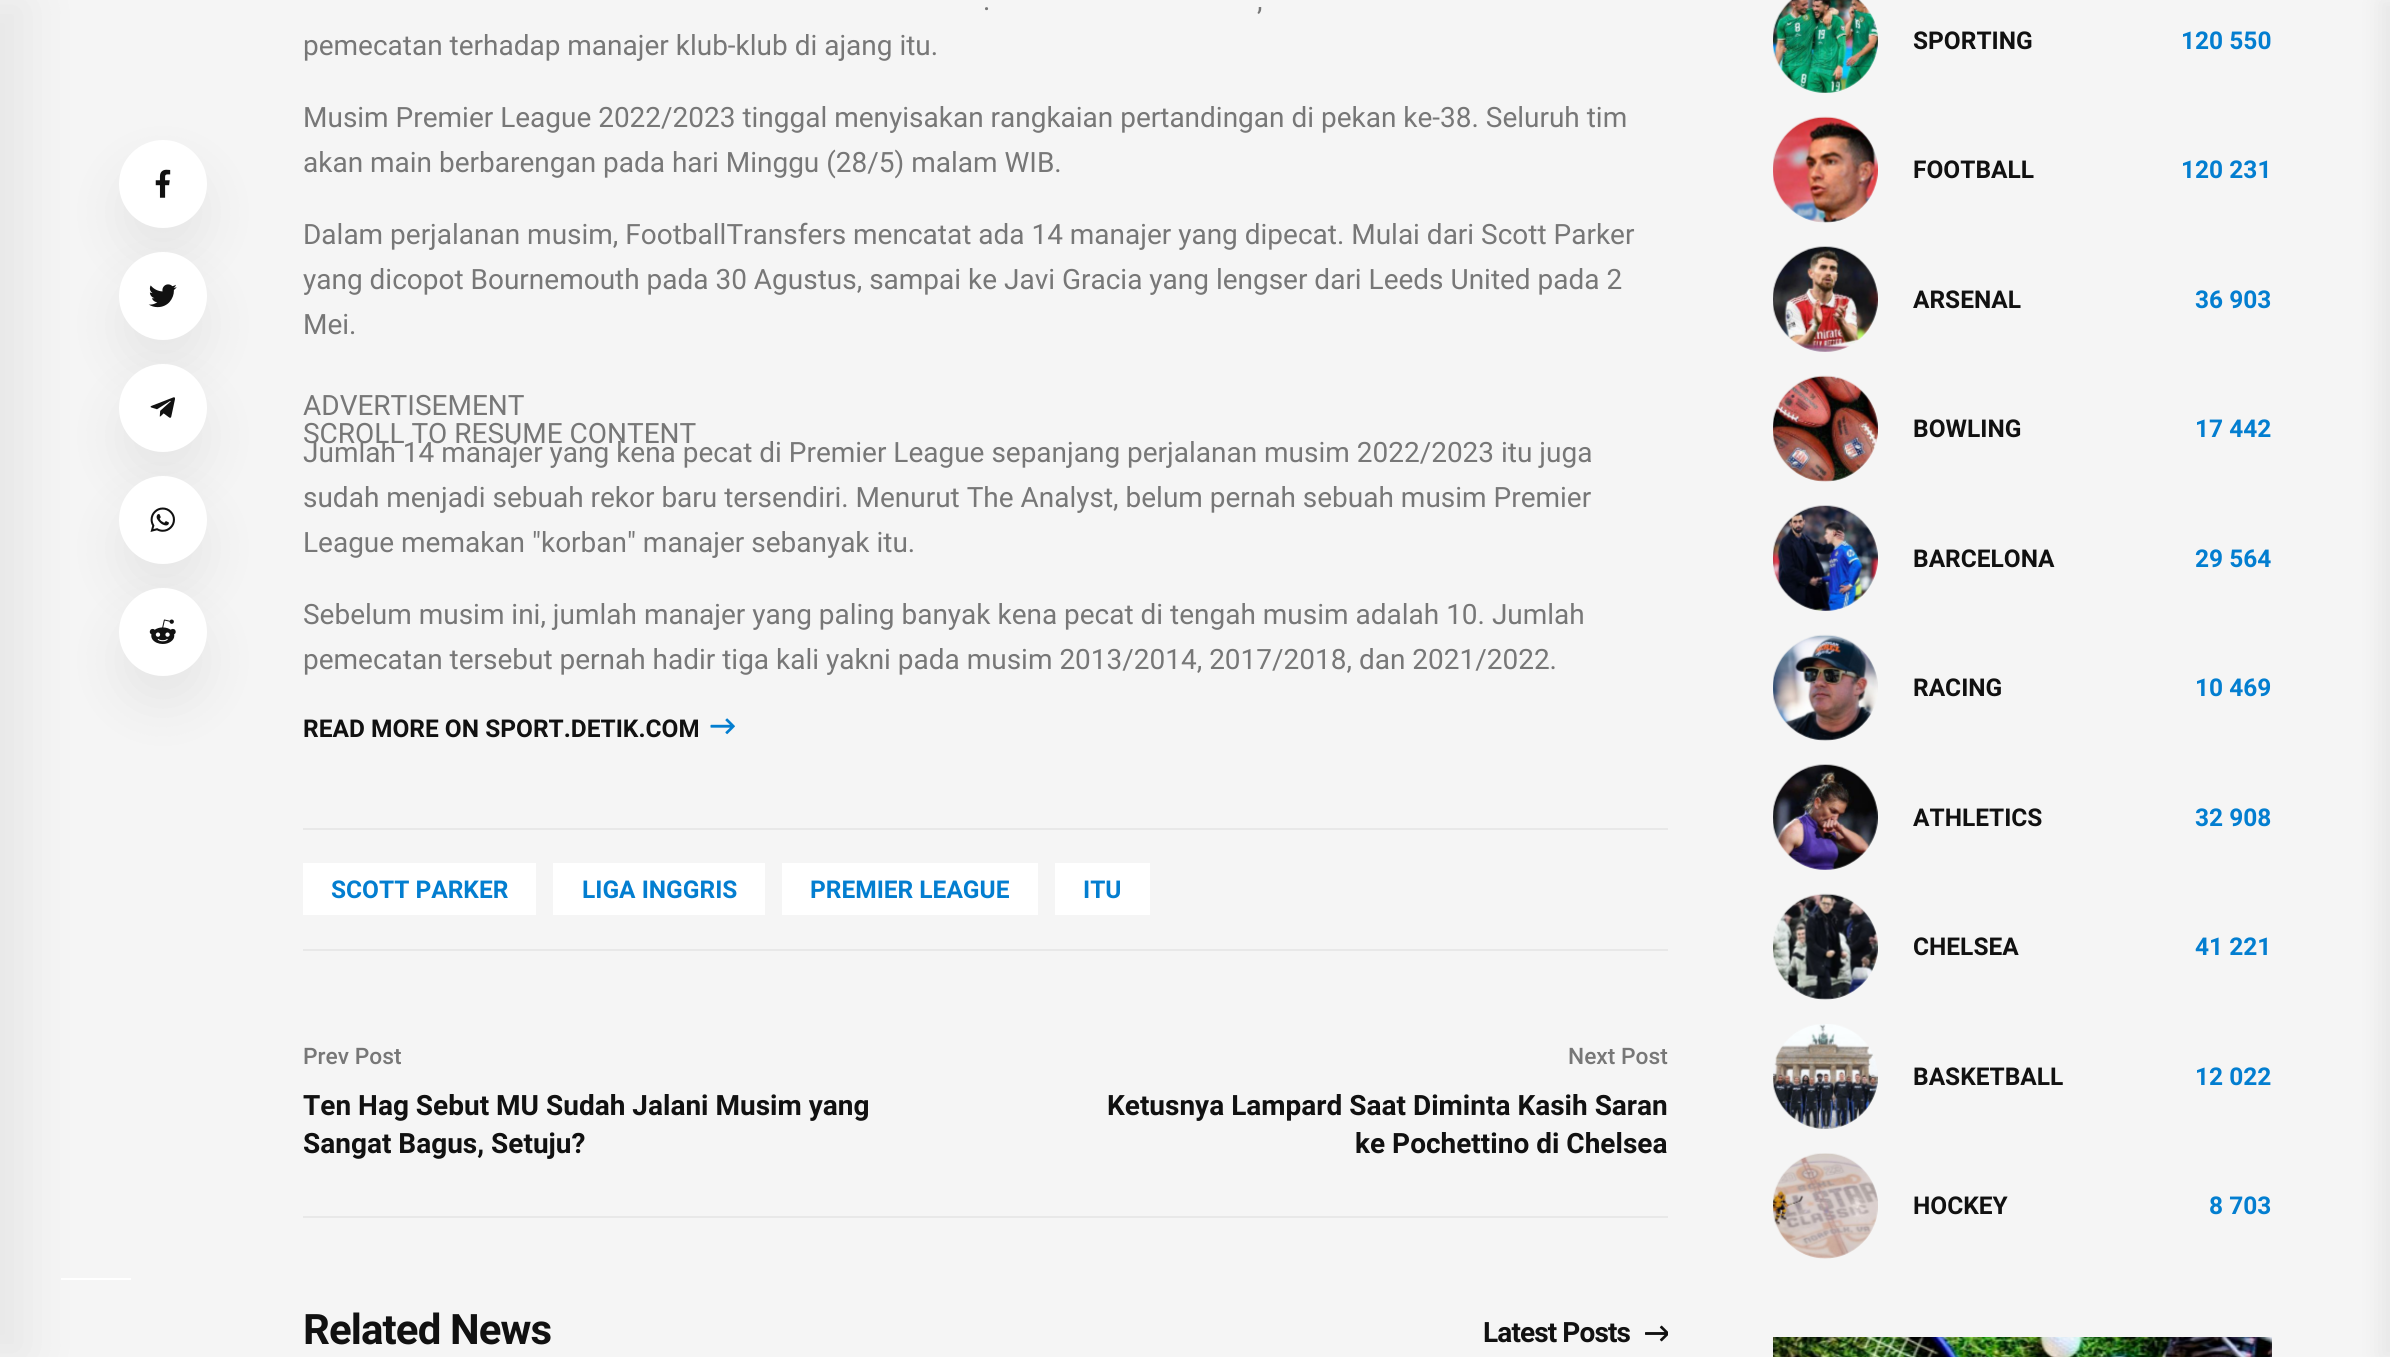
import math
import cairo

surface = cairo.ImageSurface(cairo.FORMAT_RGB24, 2390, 1357)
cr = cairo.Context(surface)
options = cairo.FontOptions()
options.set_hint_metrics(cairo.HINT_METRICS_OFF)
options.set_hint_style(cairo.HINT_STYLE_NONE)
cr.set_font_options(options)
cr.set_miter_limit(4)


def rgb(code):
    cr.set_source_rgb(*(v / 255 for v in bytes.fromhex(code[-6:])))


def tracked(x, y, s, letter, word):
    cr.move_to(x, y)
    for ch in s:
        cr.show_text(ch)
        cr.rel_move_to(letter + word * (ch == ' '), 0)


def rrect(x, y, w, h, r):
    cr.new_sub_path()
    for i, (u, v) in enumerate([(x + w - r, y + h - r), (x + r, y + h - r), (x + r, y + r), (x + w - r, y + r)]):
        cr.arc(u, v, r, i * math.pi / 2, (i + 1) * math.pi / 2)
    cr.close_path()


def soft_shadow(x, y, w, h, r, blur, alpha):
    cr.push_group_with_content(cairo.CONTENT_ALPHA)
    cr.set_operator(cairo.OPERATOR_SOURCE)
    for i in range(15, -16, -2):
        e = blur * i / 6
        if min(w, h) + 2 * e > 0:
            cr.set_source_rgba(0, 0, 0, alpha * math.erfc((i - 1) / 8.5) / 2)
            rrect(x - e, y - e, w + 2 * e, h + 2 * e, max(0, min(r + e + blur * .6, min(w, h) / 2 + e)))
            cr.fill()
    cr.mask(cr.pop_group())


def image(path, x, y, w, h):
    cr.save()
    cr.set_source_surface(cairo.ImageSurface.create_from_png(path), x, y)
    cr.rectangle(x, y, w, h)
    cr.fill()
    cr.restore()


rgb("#f5f5f5")
cr.paint()
rgb("#ffffff")
cr.rectangle(61, 1278, 70, 2)
cr.fill()
rgb("#000000")
soft_shadow(-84, 0, 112, 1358, 0, 28, 0.06)
soft_shadow(2380, 0, 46, 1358, 0, 12, 0.06)
soft_shadow(119, 168, 88, 88, 44, 28, 0.06)
rgb("#ffffff")
cr.arc(163, 184, 44, 0, 2 * math.pi)
cr.fill()
rgb("#000000")
soft_shadow(119, 280, 88, 88, 44, 28, 0.06)
image("img/1.png", 155, 169, 16, 29)
rgb("#ffffff")
cr.arc(163, 296, 44, 0, 2 * math.pi)
cr.fill()
rgb("#000000")
soft_shadow(119, 392, 88, 88, 44, 28, 0.06)
image("img/2.png", 148, 284, 29, 24)
rgb("#ffffff")
cr.arc(163, 408, 44, 0, 2 * math.pi)
cr.fill()
image("img/3.png", 150, 397, 25, 21)
rgb("#000000")
soft_shadow(119, 504, 88, 88, 44, 28, 0.06)
rgb("#ffffff")
cr.arc(163, 520, 44, 0, 2 * math.pi)
cr.fill()
rgb("#000000")
soft_shadow(119, 616, 88, 88, 44, 28, 0.06)
image("img/4.png", 150, 507, 25, 25)
rgb("#ffffff")
cr.arc(163, 632, 44, 0, 2 * math.pi)
cr.fill()
image("img/5.png", 149, 619, 27, 25)
image("img/6.png", 710, 718, 25, 17)
for x, y, w, h, color in [
    (303, 828, 1365, 2, "#e8e8e8"),
    (303, 949, 1365, 2, "#e8e8e8"),
    (303, 863, 233, 52, "#ffffff"),
    (553, 863, 212, 52, "#ffffff"),
    (782, 863, 256, 52, "#ffffff"),
    (1055, 863, 95, 52, "#ffffff"),
    (303, 1216, 1365, 2, "#e8e8e8"),
]:
    rgb(color)
    cr.rectangle(x, y, w, h)
    cr.fill()
image("img/7.png", 1645, 1325, 23, 17)
image("img/8.png", 1773, 0, 105, 93)
image("img/9.png", 1773, 116, 105, 107)
image("img/10.png", 1773, 246, 105, 106)
image("img/11.png", 1773, 375, 105, 107)
image("img/12.png", 1773, 505, 105, 106)
image("img/13.png", 1773, 634, 105, 107)
image("img/14.png", 1773, 764, 105, 106)
image("img/15.png", 1773, 893, 105, 107)
image("img/16.png", 1773, 1024, 105, 105)
image("img/17.png", 1773, 1153, 105, 106)
image("img/18.png", 1773, 1337, 499, 20)
cr.select_font_face("Roboto")
cr.set_font_size(28)
rgb("#777777")
for x, y, s in [
    (983, 10, "."),
    (1257, 10, ","),
    (303, 55, "pemecatan terhadap manajer klub-klub di ajang itu."),
    (303, 127, "Musim Premier League 2022/2023 tinggal menyisakan rangkaian pertandingan di pekan ke-38. Seluruh tim"),
    (303, 172, "akan main berbarengan pada hari Minggu (28/5) malam WIB."),
    (303, 244, "Dalam perjalanan musim, FootballTransfers mencatat ada 14 manajer yang dipecat. Mulai dari Scott Parker"),
    (303, 289, "yang dicopot Bournemouth pada 30 Agustus, sampai ke Javi Gracia yang lengser dari Leeds United pada 2"),
    (303, 334, "Mei."),
    (303, 415, "ADVERTISEMENT"),
    (303, 443, "SCROLL TO RESUME CONTENT"),
    (303, 462, "Jumlah 14 manajer yang kena pecat di Premier League sepanjang perjalanan musim 2022/2023 itu juga"),
    (303, 507, "sudah menjadi sebuah rekor baru tersendiri. Menurut The Analyst, belum pernah sebuah musim Premier"),
    (303, 552, "League memakan \"korban\" manajer sebanyak itu."),
    (303, 624, "Sebelum musim ini, jumlah manajer yang paling banyak kena pecat di tengah musim adalah 10. Jumlah"),
    (303, 669, "pemecatan tersebut pernah hadir tiga kali yakni pada musim 2013/2014, 2017/2018, dan 2021/2022."),
]:
    cr.move_to(x, y)
    cr.show_text(s)
cr.select_font_face("Roboto", cairo.FONT_SLANT_NORMAL, cairo.FONT_WEIGHT_BOLD)
cr.set_font_size(24.5)
rgb("#111111")
cr.move_to(303, 737)
cr.show_text("READ MORE ON SPORT.DETIK.COM")
rgb("#037ed0")
for x, y, s in [
    (331, 898, "SCOTT PARKER"),
    (582, 898, "LIGA INGGRIS"),
    (810, 898, "PREMIER LEAGUE"),
    (1083, 898, "ITU"),
]:
    cr.move_to(x, y)
    cr.show_text(s)
cr.select_font_face("Roboto Medium")
cr.set_font_size(22.75)
rgb("#777777")
cr.move_to(303, 1064)
cr.show_text("Prev Post")
cr.select_font_face("Roboto", cairo.FONT_SLANT_NORMAL, cairo.FONT_WEIGHT_BOLD)
cr.set_font_size(28)
rgb("#111111")
cr.move_to(303, 1115)
cr.show_text("Ten Hag Sebut MU Sudah Jalani Musim yang")
cr.move_to(303, 1153)
cr.show_text("Sangat Bagus, Setuju?")
cr.select_font_face("Roboto Medium")
cr.set_font_size(22.75)
rgb("#777777")
cr.move_to(1568, 1064)
cr.show_text("Next Post")
cr.select_font_face("Roboto", cairo.FONT_SLANT_NORMAL, cairo.FONT_WEIGHT_BOLD)
cr.set_font_size(28)
rgb("#111111")
cr.move_to(1107, 1115)
cr.show_text("Ketusnya Lampard Saat Diminta Kasih Saran")
cr.move_to(1355, 1153)
cr.show_text("ke Pochettino di Chelsea")
cr.set_font_size(42)
tracked(303, 1344, "Related News", -0.9, 0)
cr.set_font_size(28)
tracked(1483, 1342, "Latest Posts", -0.9, 0)
cr.set_font_size(24.5)
cr.move_to(1913, 49)
cr.show_text("SPORTING")
rgb("#037ed0")
cr.move_to(2181, 49)
cr.show_text("120 550")
rgb("#111111")
cr.move_to(1913, 178)
cr.show_text("FOOTBALL")
rgb("#037ed0")
cr.move_to(2181, 178)
cr.show_text("120 231")
rgb("#111111")
cr.move_to(1913, 308)
cr.show_text("ARSENAL")
rgb("#037ed0")
cr.move_to(2195, 308)
cr.show_text("36 903")
rgb("#111111")
cr.move_to(1913, 437)
cr.show_text("BOWLING")
rgb("#037ed0")
cr.move_to(2195, 437)
cr.show_text("17 442")
rgb("#111111")
cr.move_to(1913, 567)
cr.show_text("BARCELONA")
rgb("#037ed0")
cr.move_to(2195, 567)
cr.show_text("29 564")
rgb("#111111")
cr.move_to(1913, 696)
cr.show_text("RACING")
rgb("#037ed0")
cr.move_to(2195, 696)
cr.show_text("10 469")
rgb("#111111")
cr.move_to(1913, 826)
cr.show_text("ATHLETICS")
rgb("#037ed0")
cr.move_to(2195, 826)
cr.show_text("32 908")
rgb("#111111")
cr.move_to(1913, 955)
cr.show_text("CHELSEA")
rgb("#037ed0")
cr.move_to(2195, 955)
cr.show_text("41 221")
rgb("#111111")
cr.move_to(1913, 1085)
cr.show_text("BASKETBALL")
rgb("#037ed0")
cr.move_to(2195, 1085)
cr.show_text("12 022")
rgb("#111111")
cr.move_to(1913, 1214)
cr.show_text("HOCKEY")
rgb("#037ed0")
cr.move_to(2209, 1214)
cr.show_text("8 703")
surface.write_to_png("page.png")
